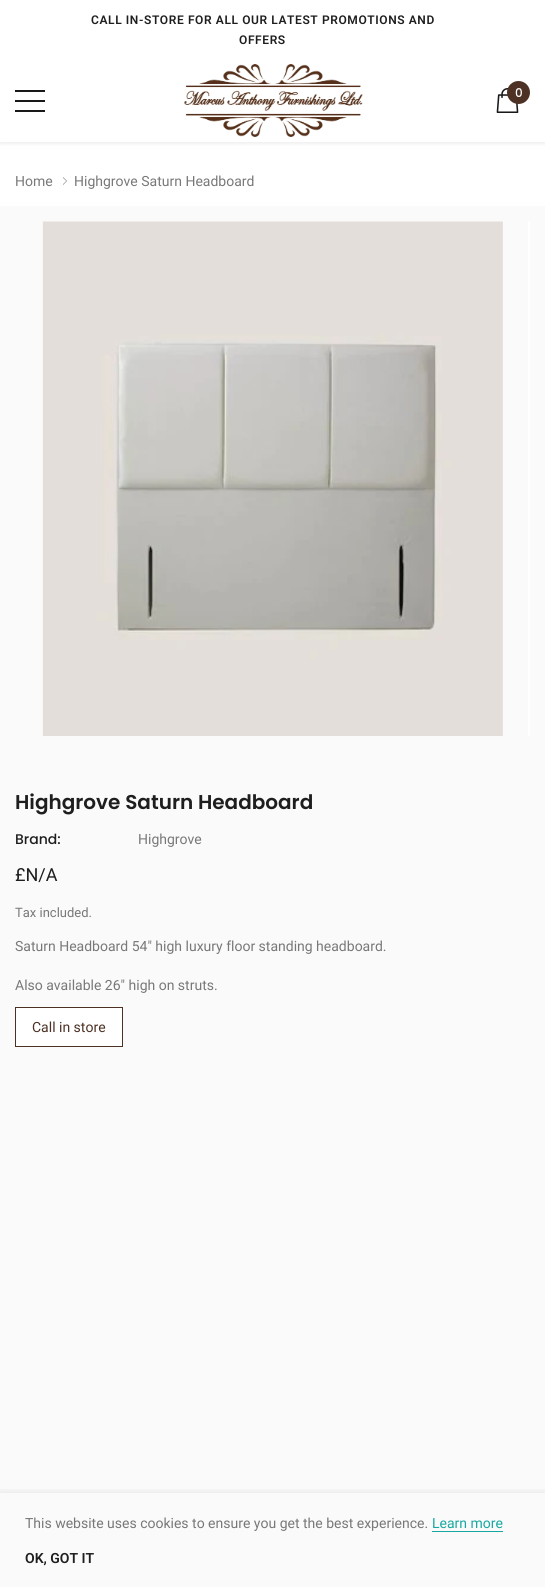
import math
import cairo

surface = cairo.ImageSurface(cairo.FORMAT_RGB24, 545, 1587)
cr = cairo.Context(surface)
options = cairo.FontOptions()
options.set_hint_metrics(cairo.HINT_METRICS_OFF)
options.set_hint_style(cairo.HINT_STYLE_NONE)
cr.set_font_options(options)
cr.set_miter_limit(4)


def rgb(code):
    cr.set_source_rgb(*(v / 255 for v in bytes.fromhex(code[-6:])))


def tracked(x, y, s, letter, word):
    cr.move_to(x, y)
    for ch in s:
        cr.show_text(ch)
        cr.rel_move_to(letter + word * (ch == ' '), 0)


def rrect(x, y, w, h, r):
    cr.new_sub_path()
    for i, (u, v) in enumerate([(x + w - r, y + h - r), (x + r, y + h - r), (x + r, y + r), (x + w - r, y + r)]):
        cr.arc(u, v, r, i * math.pi / 2, (i + 1) * math.pi / 2)
    cr.close_path()


def soft_shadow(x, y, w, h, r, blur, alpha):
    cr.push_group_with_content(cairo.CONTENT_ALPHA)
    cr.set_operator(cairo.OPERATOR_SOURCE)
    for i in range(15, -16, -2):
        e = blur * i / 6
        if min(w, h) + 2 * e > 0:
            cr.set_source_rgba(0, 0, 0, alpha * math.erfc((i - 1) / 8.5) / 2)
            rrect(x - e, y - e, w + 2 * e, h + 2 * e, max(0, min(r + e + blur * .6, min(w, h) / 2 + e)))
            cr.fill()
    cr.mask(cr.pop_group())


def image(path, x, y, w, h):
    cr.save()
    cr.set_source_surface(cairo.ImageSurface.create_from_png(path), x, y)
    cr.rectangle(x, y, w, h)
    cr.fill()
    cr.restore()


rgb("#fafafa")
cr.paint()
rgb("#ffffff")
cr.rectangle(0, 142, 545, 64)
cr.fill()
rgb("#efefef")
soft_shadow(0, 2, 545, 142, 0, 1.5, 1)
for x, y, w, h, color in [
    (0, 0, 545, 142, "#ffffff"),
    (15, 100, 30, 2, "#191919"),
    (15, 90, 30, 2, "#191919"),
    (15, 110, 30, 2, "#191919"),
]:
    rgb(color)
    cr.rectangle(x, y, w, h)
    cr.fill()
image("img/1.png", 184, 64, 179, 73)
image("img/2.png", 496, 88, 23, 25)
rgb("#4c3124")
cr.arc(518.5, 92.5, 11.5, 0, 2 * math.pi)
cr.fill()
image("img/3.png", 63, 177, 4, 8)
image("img/4.png", 42, 221, 461, 515)
rgb("#ffffff")
cr.rectangle(528, 221, 2, 515)
cr.fill()
cr.rectangle(15.5, 1007.5, 107, 39)
cr.fill_preserve()
rgb("#4c3124")
cr.set_line_width(1)
cr.stroke()
cr.save()
cr.rectangle(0, 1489, 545, 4)
cr.clip()
rgb("#000000")
soft_shadow(0, 1493, 545, 94, 0, 5, 0.1)
cr.restore()
rgb("#17a8a3")
cr.rectangle(432, 1531, 71, 1)
cr.fill()
cr.select_font_face("Roboto SemiBold")
cr.set_font_size(12)
rgb("#1e1e1e")
tracked(91, 24, "CALL IN-STORE FOR ALL OUR LATEST PROMOTIONS AND", 0.6, 0)
tracked(239, 44, "OFFERS", 0.6, 0)
cr.select_font_face("Poppins Medium")
rgb("#ffffff")
cr.move_to(515, 97)
cr.show_text("0")
cr.select_font_face("Roboto")
cr.set_font_size(14)
rgb("#787878")
cr.move_to(15, 186)
cr.show_text("Home")
cr.move_to(74, 186)
cr.show_text("Highgrove Saturn Headboard")
cr.select_font_face("Poppins SemiBold")
cr.set_font_size(20)
rgb("#1e1e1e")
cr.move_to(15, 809)
cr.show_text("Highgrove Saturn Headboard")
cr.select_font_face("Poppins Medium")
cr.set_font_size(14)
cr.move_to(15, 844)
cr.show_text("Brand:")
cr.select_font_face("Roboto")
rgb("#787878")
cr.move_to(138, 844)
cr.show_text("Highgrove")
cr.set_font_size(18)
rgb("#1e1e1e")
cr.move_to(15, 881)
cr.show_text("£N/A")
cr.set_font_size(13)
rgb("#787878")
cr.move_to(15, 917)
cr.show_text("Tax included.")
cr.set_font_size(14)
cr.move_to(15, 951)
cr.show_text("Saturn Headboard 54\" high luxury floor standing headboard.")
cr.move_to(15, 990)
cr.show_text("Also available 26\" high on struts.")
rgb("#4c3124")
cr.move_to(32, 1032)
cr.show_text("Call in store")
rgb("#787878")
cr.move_to(25, 1528)
cr.show_text("This website uses cookies to ensure you get the best experience.")
rgb("#17a8a3")
cr.move_to(432, 1528)
cr.show_text("Learn more")
cr.select_font_face("Roboto SemiBold")
rgb("#1e1e1e")
cr.move_to(25, 1563)
cr.show_text("OK, GOT IT")
surface.write_to_png("page.png")
